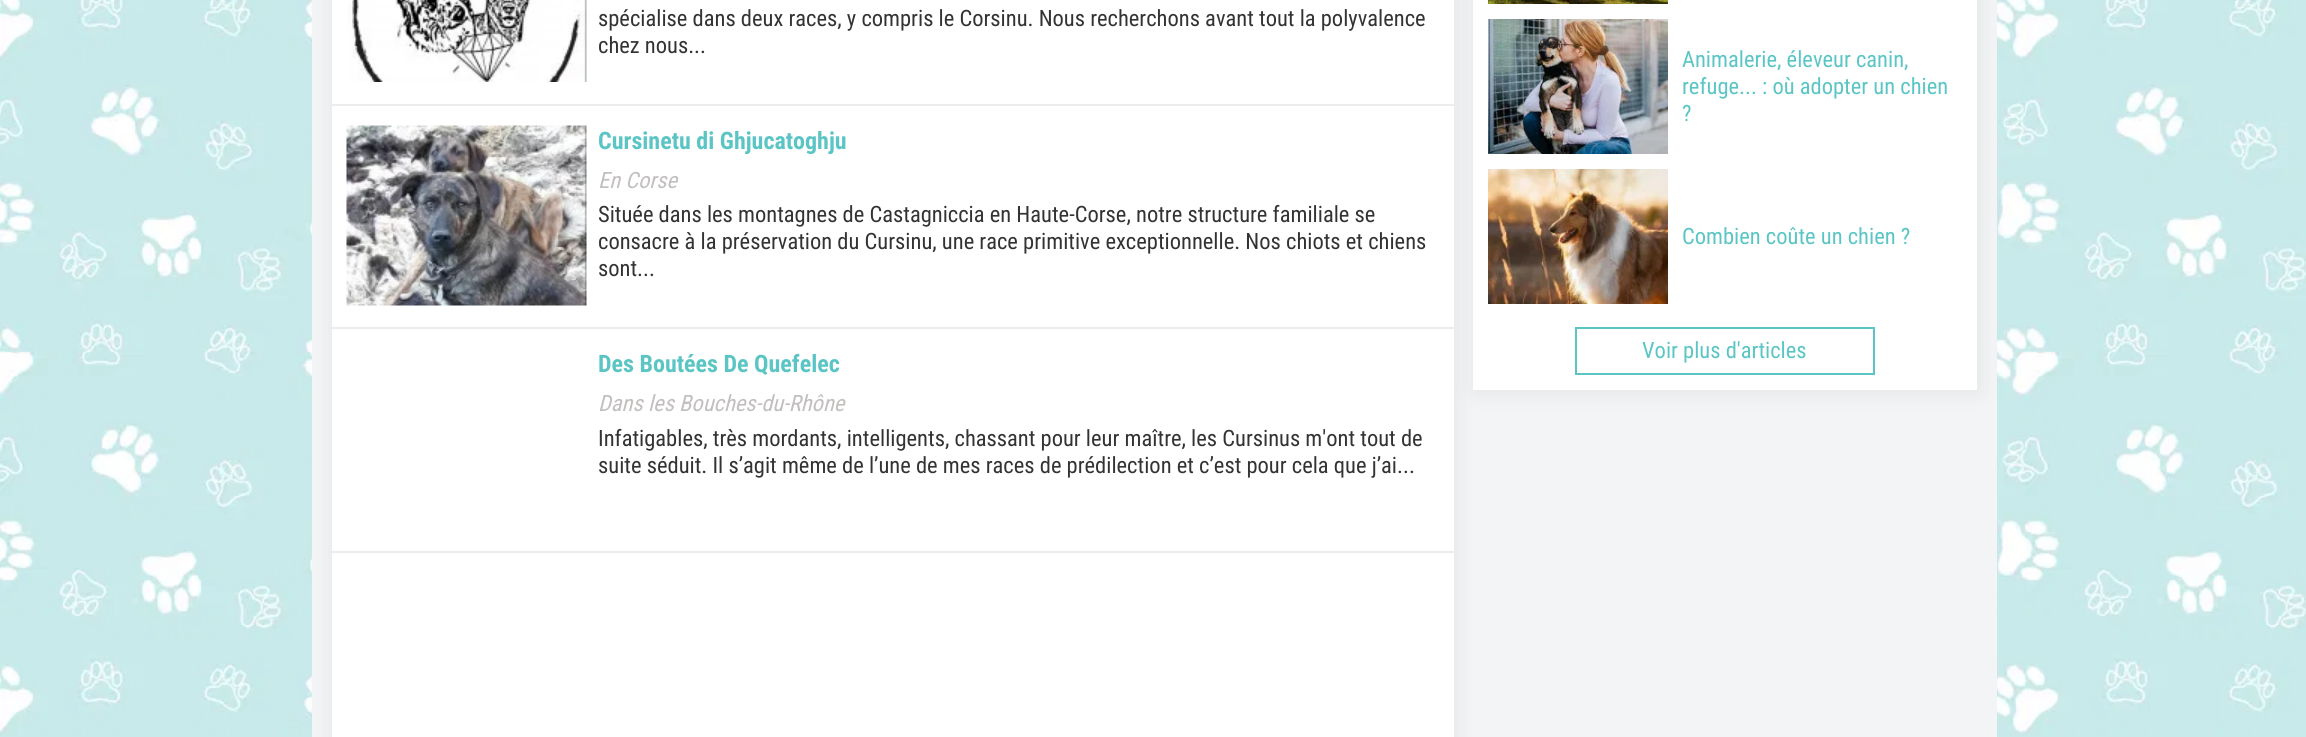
import math
import cairo

surface = cairo.ImageSurface(cairo.FORMAT_RGB24, 2306, 737)
cr = cairo.Context(surface)
options = cairo.FontOptions()
options.set_hint_metrics(cairo.HINT_METRICS_OFF)
options.set_hint_style(cairo.HINT_STYLE_NONE)
cr.set_font_options(options)
cr.set_miter_limit(4)


def rgb(code):
    cr.set_source_rgb(*(v / 255 for v in bytes.fromhex(code[-6:])))


def rrect(x, y, w, h, r):
    cr.new_sub_path()
    for i, (u, v) in enumerate([(x + w - r, y + h - r), (x + r, y + h - r), (x + r, y + r), (x + w - r, y + r)]):
        cr.arc(u, v, r, i * math.pi / 2, (i + 1) * math.pi / 2)
    cr.close_path()


def soft_shadow(x, y, w, h, r, blur, alpha):
    cr.push_group_with_content(cairo.CONTENT_ALPHA)
    cr.set_operator(cairo.OPERATOR_SOURCE)
    for i in range(15, -16, -2):
        e = blur * i / 6
        if min(w, h) + 2 * e > 0:
            cr.set_source_rgba(0, 0, 0, alpha * math.erfc((i - 1) / 8.5) / 2)
            rrect(x - e, y - e, w + 2 * e, h + 2 * e, max(0, min(r + e + blur * .6, min(w, h) / 2 + e)))
            cr.fill()
    cr.mask(cr.pop_group())


def image(path, x, y, w, h):
    cr.save()
    cr.set_source_surface(cairo.ImageSurface.create_from_png(path), x, y)
    cr.rectangle(x, y, w, h)
    cr.fill()
    cr.restore()


rgb("#c8eaeb")
cr.paint()
image("img/1.png", 0, 0, 2306, 736)
rgb("#f3f4f5")
cr.rectangle(312, 0, 1685, 737)
cr.fill()
rgb("#484848")
soft_shadow(333, -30, 1122, 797, 0, 10, 0.1)
rgb("#ffffff")
cr.rectangle(332, 0, 1122, 737)
cr.fill()
image("img/2.png", 348, 0, 239, 82)
rgb("#eceded")
cr.rectangle(332, 104, 1122, 2)
cr.fill()
image("img/3.png", 346, 125, 241, 181)
cr.rectangle(332, 327, 1122, 2)
cr.fill()
cr.rectangle(332, 551, 1122, 2)
cr.fill()
rgb("#484848")
soft_shadow(1475, -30, 504, 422, 0, 10, 0.1)
rgb("#ffffff")
cr.rectangle(1473, 0, 504, 390)
cr.fill()
image("img/4.png", 1488, 0, 180, 4)
image("img/5.png", 1488, 19, 180, 135)
image("img/6.png", 1488, 169, 180, 135)
cr.rectangle(1576, 328, 298, 46)
rgb("#5bc5c5")
cr.stroke()
cr.select_font_face("Roboto Condensed")
cr.set_font_size(22.5)
rgb("#333333")
cr.move_to(598, 26)
cr.show_text("spécialise dans deux races, y compris le Corsinu. Nous recherchons avant tout la polyvalence")
cr.move_to(598, 53)
cr.show_text("chez nous...")
cr.select_font_face("Roboto", cairo.FONT_SLANT_NORMAL, cairo.FONT_WEIGHT_BOLD)
cr.set_font_size(24)
rgb("#5bc5c5")
cr.move_to(598, 149)
cr.show_text("Cursinetu di Ghjucatoghju")
cr.select_font_face("Roboto Condensed", cairo.FONT_SLANT_ITALIC)
cr.set_font_size(22.5)
rgb("#c2bfbe")
cr.move_to(598, 188)
cr.show_text("En Corse")
cr.select_font_face("Roboto Condensed")
rgb("#333333")
for x, y, s in [
    (598, 222, "Située dans les montagnes de Castagniccia en Haute-Corse, notre structure familiale se"),
    (598, 249, "consacre à la préservation du Cursinu, une race primitive exceptionnelle. Nos chiots et chiens"),
    (598, 276, "sont..."),
]:
    cr.move_to(x, y)
    cr.show_text(s)
cr.select_font_face("Roboto", cairo.FONT_SLANT_NORMAL, cairo.FONT_WEIGHT_BOLD)
cr.set_font_size(24)
rgb("#5bc5c5")
cr.move_to(598, 372)
cr.show_text("Des Boutées De Quefelec")
cr.select_font_face("Roboto Condensed", cairo.FONT_SLANT_ITALIC)
cr.set_font_size(22.5)
rgb("#c2bfbe")
cr.move_to(598, 411)
cr.show_text("Dans les Bouches-du-Rhône")
cr.select_font_face("Roboto Condensed")
rgb("#333333")
cr.move_to(598, 446)
cr.show_text("Infatigables, très mordants, intelligents, chassant pour leur maître, les Cursinus m'ont tout de")
cr.move_to(598, 473)
cr.show_text("suite séduit. Il s’agit même de l’une de mes races de prédilection et c’est pour cela que j’ai...")
rgb("#5bc5c5")
for x, y, s in [
    (1682, 67, "Animalerie, éleveur canin,"),
    (1682, 94, "refuge... : où adopter un chien"),
    (1682, 121, "?"),
    (1682, 244, "Combien coûte un chien ?"),
    (1642, 358, "Voir plus d'articles"),
]:
    cr.move_to(x, y)
    cr.show_text(s)
surface.write_to_png("page.png")
